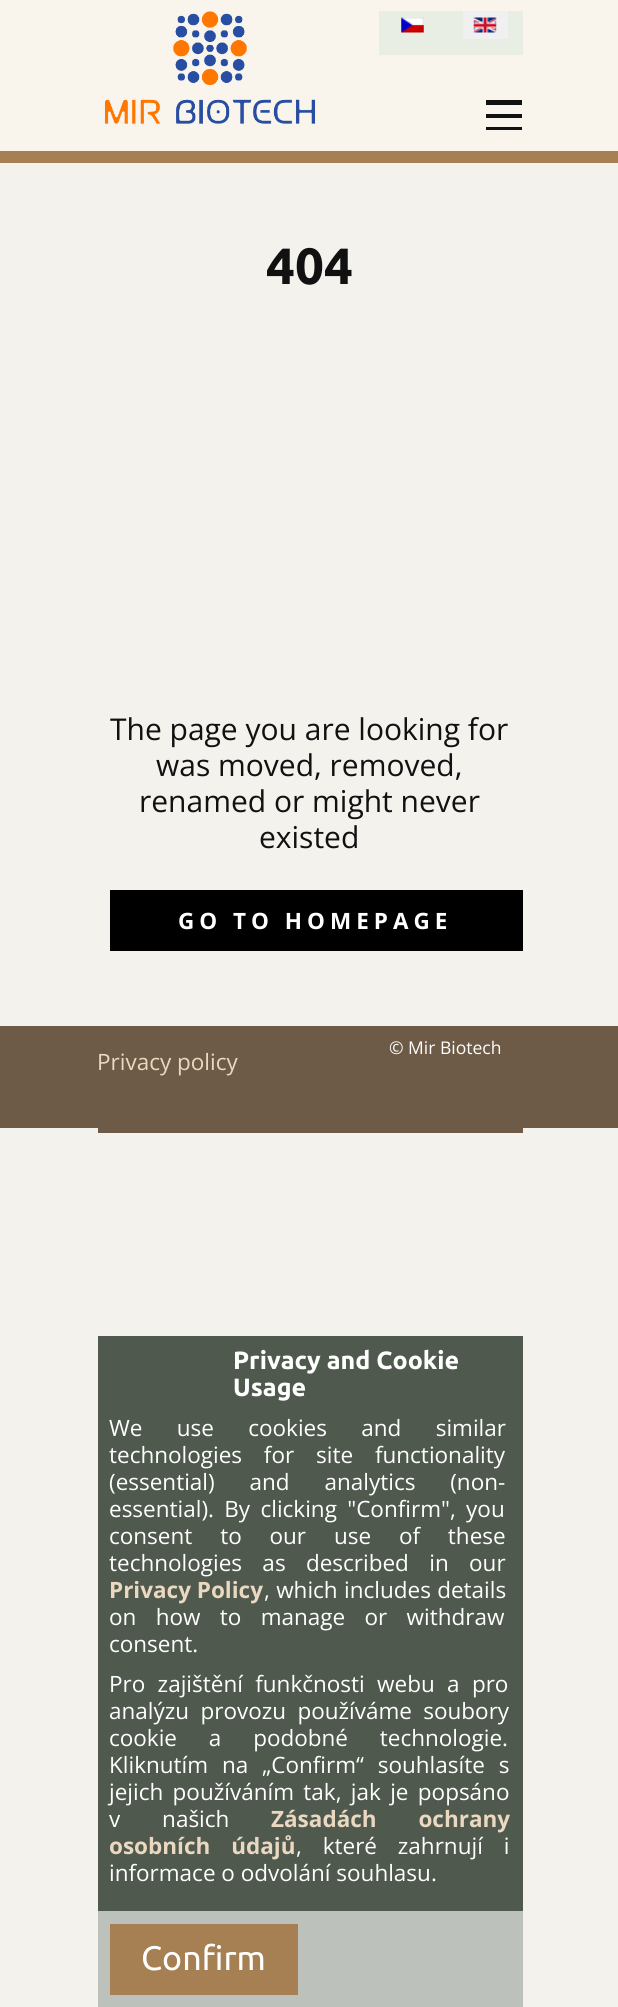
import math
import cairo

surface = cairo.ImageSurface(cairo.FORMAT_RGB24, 618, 2007)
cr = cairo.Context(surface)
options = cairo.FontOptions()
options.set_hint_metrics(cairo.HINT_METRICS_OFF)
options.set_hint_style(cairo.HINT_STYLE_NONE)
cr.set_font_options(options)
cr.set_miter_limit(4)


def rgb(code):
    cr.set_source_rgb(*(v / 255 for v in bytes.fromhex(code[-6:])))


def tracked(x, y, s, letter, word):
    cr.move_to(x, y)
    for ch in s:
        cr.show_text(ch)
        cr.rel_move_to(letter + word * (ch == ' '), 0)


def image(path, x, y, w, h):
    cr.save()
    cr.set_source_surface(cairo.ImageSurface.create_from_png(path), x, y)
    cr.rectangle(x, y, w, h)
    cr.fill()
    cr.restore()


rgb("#f4f2ed")
cr.paint()
rgb("#f9f5ed")
cr.rectangle(0, 0, 618, 151)
cr.fill()
rgb("#a68053")
cr.rectangle(0, 151, 618, 12)
cr.fill()
image("img/1.png", 104, 11, 212, 113)
rgb("#e9eee5")
cr.rectangle(379, 11, 144, 44)
cr.fill()
image("img/2.png", 401, 17, 23, 16)
rgb("#f0f0f0")
cr.rectangle(463, 11, 45, 28)
cr.fill()
image("img/3.png", 473, 17, 24, 16)
for x, y, w, h, color in [
    (486, 100, 36, 5, "#111111"),
    (486, 114, 36, 4, "#111111"),
    (486, 127, 36, 3, "#111111"),
    (110, 890, 413, 61, "#000000"),
    (0, 1026, 618, 102, "#6d5b47"),
    (98, 1128, 425, 5, "#6d5b47"),
    (98, 1911, 425, 96, "#bdc1bc"),
    (98, 1336, 425, 575, "#4f594d"),
    (110, 1924, 188, 71, "#a68053"),
]:
    rgb(color)
    cr.rectangle(x, y, w, h)
    cr.fill()
cr.select_font_face("Ubuntu", cairo.FONT_SLANT_NORMAL, cairo.FONT_WEIGHT_BOLD)
cr.set_font_size(51)
rgb("#111111")
cr.move_to(266, 284)
cr.show_text("404")
cr.select_font_face("Open Sans")
cr.set_font_size(30)
for x, y, s in [
    (110, 740, "The page you are looking for"),
    (156, 776, "was moved, removed,"),
    (139, 812, "renamed or might never"),
    (259, 848, "existed"),
]:
    cr.move_to(x, y)
    cr.show_text(s)
cr.select_font_face("Open Sans", cairo.FONT_SLANT_NORMAL, cairo.FONT_WEIGHT_BOLD)
cr.set_font_size(22.5)
rgb("#ffffff")
tracked(178, 929, "GO TO HOMEPAGE", 5, 0)
cr.select_font_face("Open Sans")
cr.set_font_size(17.5)
cr.move_to(389, 1054)
cr.show_text("© Mir Biotech")
cr.set_font_size(22.5)
rgb("#ebd8c1")
cr.move_to(97, 1070)
cr.show_text("Privacy policy")
cr.select_font_face("Ubuntu", cairo.FONT_SLANT_NORMAL, cairo.FONT_WEIGHT_BOLD)
cr.set_font_size(25)
rgb("#ffffff")
cr.move_to(233, 1369)
cr.show_text("Privacy and Cookie")
cr.move_to(233, 1396)
cr.show_text("Usage")
cr.select_font_face("Open Sans")
cr.set_font_size(22.5)
tracked(109, 1436, "We use cookies and similar", 0, 28.5)
tracked(109, 1463, "technologies for site functionality", 0, 16)
tracked(109, 1490, "(essential) and analytics (non-", 0, 29)
tracked(109, 1517, "essential). By clicking \"Confirm\", you", 0, 4.5)
tracked(109, 1544, "consent to our use of these", 0, 22)
tracked(109, 1571, "technologies as described in our", 0, 14.5)
cr.select_font_face("Open Sans", cairo.FONT_SLANT_NORMAL, cairo.FONT_WEIGHT_BOLD)
rgb("#ebd8c1")
cr.move_to(109, 1598)
cr.show_text("Privacy Policy")
cr.select_font_face("Open Sans")
rgb("#ffffff")
tracked(264, 1598, ", which includes details", 0, 0.5)
tracked(109, 1625, "on how to manage or withdraw", 0, 13.5)
cr.move_to(109, 1652)
cr.show_text("consent.")
tracked(109, 1692, "Pro zajištění funkčnosti webu a pro", 0, 6.5)
tracked(109, 1719, "analýzu provozu používáme soubory", 0, 5.5)
tracked(109, 1746, "cookie a podobné technologie.", 0, 26)
tracked(109, 1773, "Kliknutím na „Confirm“ souhlasíte s", 0, 8)
tracked(109, 1800, "jejich používáním tak, jak je popsáno", 0, 3.5)
tracked(109, 1827, "v našich", 0, 36)
cr.select_font_face("Open Sans", cairo.FONT_SLANT_NORMAL, cairo.FONT_WEIGHT_BOLD)
rgb("#ebd8c1")
tracked(271, 1827, "Zásadách ochrany", 0, 36)
tracked(109, 1854, "osobních údajů", 0, 15)
cr.select_font_face("Open Sans")
rgb("#ffffff")
tracked(296, 1854, ", které zahrnují i", 0, 15)
cr.move_to(109, 1881)
cr.show_text("informace o odvolání souhlasu.")
cr.select_font_face("Ubuntu")
cr.set_font_size(34)
cr.move_to(141, 1970)
cr.show_text("Confirm")
surface.write_to_png("page.png")
